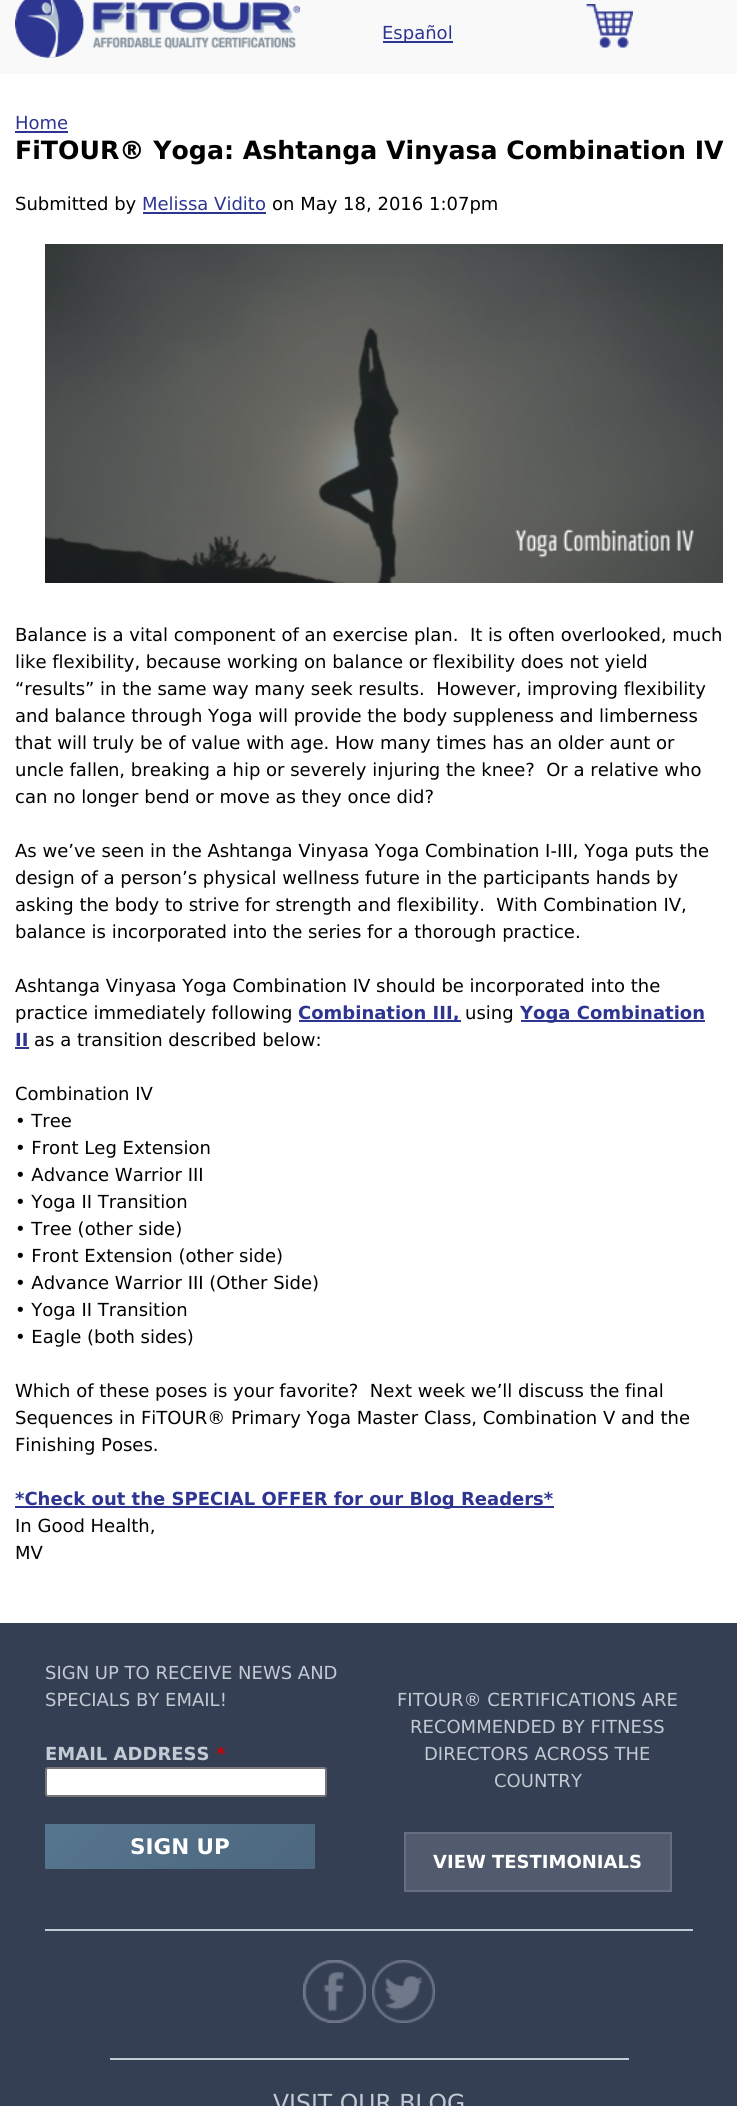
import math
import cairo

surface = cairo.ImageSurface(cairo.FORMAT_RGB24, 737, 2106)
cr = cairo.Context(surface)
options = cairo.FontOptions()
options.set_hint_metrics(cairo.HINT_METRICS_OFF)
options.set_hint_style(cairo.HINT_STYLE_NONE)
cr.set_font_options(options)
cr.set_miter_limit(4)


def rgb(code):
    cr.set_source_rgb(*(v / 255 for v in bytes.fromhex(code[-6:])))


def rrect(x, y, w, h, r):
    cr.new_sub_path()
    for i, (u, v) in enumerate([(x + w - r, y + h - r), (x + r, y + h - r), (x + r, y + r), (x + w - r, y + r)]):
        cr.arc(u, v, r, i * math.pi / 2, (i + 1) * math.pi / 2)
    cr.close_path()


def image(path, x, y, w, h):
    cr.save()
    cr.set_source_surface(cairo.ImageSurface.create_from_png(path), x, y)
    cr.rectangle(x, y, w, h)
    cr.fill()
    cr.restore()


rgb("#ffffff")
cr.paint()
rgb("#f9f9f9")
cr.rectangle(0, 0, 737, 74)
cr.fill()
image("img/1.png", 15, 0, 285, 58)
rgb("#2d3591")
cr.rectangle(383, 41, 70, 2)
cr.fill()
image("img/2.png", 586, 4, 47, 44)
cr.rectangle(15, 131, 53, 2)
cr.fill()
cr.rectangle(143, 212, 123, 2)
cr.fill()
image("img/3.png", 45, 244, 678, 339)
for x, y, w, h, color in [
    (299, 1020, 162, 2, "#2d3591"),
    (521, 1020, 184, 2, "#2d3591"),
    (15, 1047, 14, 2, "#2d3591"),
    (15, 1506, 539, 2, "#2d3591"),
    (0, 1623, 737, 483, "#353f53"),
]:
    rgb(color)
    cr.rectangle(x, y, w, h)
    cr.fill()
rgb("#ffffff")
rrect(46, 1768, 280, 28, 2)
cr.fill_preserve()
rgb("#767676")
cr.stroke()
gradient = cairo.LinearGradient(101, 1768, 259, 1925)
gradient.add_color_stop_rgba(0, 0.337, 0.459, 0.561, 1)
gradient.add_color_stop_rgba(1, 0.298, 0.404, 0.494, 1)
cr.set_source(gradient)
cr.rectangle(45, 1824, 270, 45)
cr.fill()
rgb("#515b6d")
cr.rectangle(405, 1833, 266, 58)
cr.fill_preserve()
rgb("#646e80")
cr.stroke()
rgb("#c0cbd4")
cr.rectangle(45, 1929, 648, 2)
cr.fill()
image("img/4.png", 303, 1960, 63, 63)
image("img/5.png", 372, 1960, 63, 63)
cr.rectangle(110, 2058, 519, 2)
cr.fill()
cr.select_font_face("DejaVu Sans")
cr.set_font_size(18)
rgb("#2d3591")
cr.move_to(382, 39)
cr.show_text("Español")
cr.move_to(15, 129)
cr.show_text("Home")
cr.select_font_face("DejaVu Sans", cairo.FONT_SLANT_NORMAL, cairo.FONT_WEIGHT_BOLD)
cr.set_font_size(25.2)
rgb("#000000")
cr.move_to(15, 159)
cr.show_text("FiTOUR® Yoga: Ashtanga Vinyasa Combination IV")
cr.select_font_face("DejaVu Sans")
cr.set_font_size(18)
cr.move_to(15, 210)
cr.show_text("Submitted by")
rgb("#2d3591")
cr.move_to(142, 210)
cr.show_text("Melissa Vidito")
rgb("#000000")
for x, y, s in [
    (272, 210, "on May 18, 2016 1:07pm"),
    (15, 641, "Balance is a vital component of an exercise plan.  It is often overlooked, much"),
    (15, 668, "like flexibility, because working on balance or flexibility does not yield"),
    (15, 695, "“results” in the same way many seek results.  However, improving flexibility"),
    (15, 722, "and balance through Yoga will provide the body suppleness and limberness"),
    (15, 749, "that will truly be of value with age. How many times has an older aunt or"),
    (15, 776, "uncle fallen, breaking a hip or severely injuring the knee?  Or a relative who"),
    (15, 803, "can no longer bend or move as they once did?"),
    (15, 857, "As we’ve seen in the Ashtanga Vinyasa Yoga Combination I-III, Yoga puts the"),
    (15, 884, "design of a person’s physical wellness future in the participants hands by"),
    (15, 911, "asking the body to strive for strength and flexibility.  With Combination IV,"),
    (15, 938, "balance is incorporated into the series for a thorough practice."),
    (15, 992, "Ashtanga Vinyasa Yoga Combination IV should be incorporated into the"),
    (15, 1019, "practice immediately following"),
]:
    cr.move_to(x, y)
    cr.show_text(s)
cr.select_font_face("DejaVu Sans", cairo.FONT_SLANT_NORMAL, cairo.FONT_WEIGHT_BOLD)
rgb("#2d3591")
cr.move_to(298, 1019)
cr.show_text("Combination III,")
cr.select_font_face("DejaVu Sans")
rgb("#000000")
cr.move_to(465, 1019)
cr.show_text("using")
cr.select_font_face("DejaVu Sans", cairo.FONT_SLANT_NORMAL, cairo.FONT_WEIGHT_BOLD)
rgb("#2d3591")
cr.move_to(520, 1019)
cr.show_text("Yoga Combination")
cr.move_to(15, 1046)
cr.show_text("II")
cr.select_font_face("DejaVu Sans")
rgb("#000000")
for x, y, s in [
    (34, 1046, "as a transition described below:"),
    (15, 1100, "Combination IV"),
    (15, 1127, "• Tree"),
    (15, 1154, "• Front Leg Extension"),
    (15, 1181, "• Advance Warrior III"),
    (15, 1208, "• Yoga II Transition"),
    (15, 1235, "• Tree (other side)"),
    (15, 1262, "• Front Extension (other side)"),
    (15, 1289, "• Advance Warrior III (Other Side)"),
    (15, 1316, "• Yoga II Transition"),
    (15, 1343, "• Eagle (both sides)"),
    (15, 1397, "Which of these poses is your favorite?  Next week we’ll discuss the final"),
    (15, 1424, "Sequences in FiTOUR® Primary Yoga Master Class, Combination V and the"),
    (15, 1451, "Finishing Poses."),
]:
    cr.move_to(x, y)
    cr.show_text(s)
cr.select_font_face("DejaVu Sans", cairo.FONT_SLANT_NORMAL, cairo.FONT_WEIGHT_BOLD)
rgb("#2d3591")
cr.move_to(15, 1505)
cr.show_text("*Check out the SPECIAL OFFER for our Blog Readers*")
cr.select_font_face("DejaVu Sans")
rgb("#000000")
cr.move_to(15, 1532)
cr.show_text("In Good Health,")
cr.move_to(15, 1559)
cr.show_text("MV")
rgb("#c0cbd4")
cr.move_to(45, 1679)
cr.show_text("SIGN UP TO RECEIVE NEWS AND")
cr.move_to(45, 1706)
cr.show_text("SPECIALS BY EMAIL!")
cr.select_font_face("DejaVu Sans", cairo.FONT_SLANT_NORMAL, cairo.FONT_WEIGHT_BOLD)
cr.move_to(45, 1760)
cr.show_text("EMAIL ADDRESS")
rgb("#cc0000")
cr.move_to(216, 1760)
cr.show_text("*")
cr.set_font_size(21.5)
rgb("#ffffff")
cr.move_to(130, 1854)
cr.show_text("SIGN UP")
cr.select_font_face("DejaVu Sans")
cr.set_font_size(18)
rgb("#c0cbd4")
for x, y, s in [
    (397, 1706, "FITOUR® CERTIFICATIONS ARE"),
    (410, 1733, "RECOMMENDED BY FITNESS"),
    (424, 1760, "DIRECTORS ACROSS THE"),
    (494, 1787, "COUNTRY"),
]:
    cr.move_to(x, y)
    cr.show_text(s)
cr.select_font_face("DejaVu Sans", cairo.FONT_SLANT_NORMAL, cairo.FONT_WEIGHT_BOLD)
rgb("#ffffff")
cr.move_to(433, 1868)
cr.show_text("VIEW TESTIMONIALS")
cr.select_font_face("DejaVu Sans")
cr.set_font_size(23.5)
rgb("#c0cbd4")
cr.move_to(273, 2111)
cr.show_text("VISIT OUR BLOG")
surface.write_to_png("page.png")
